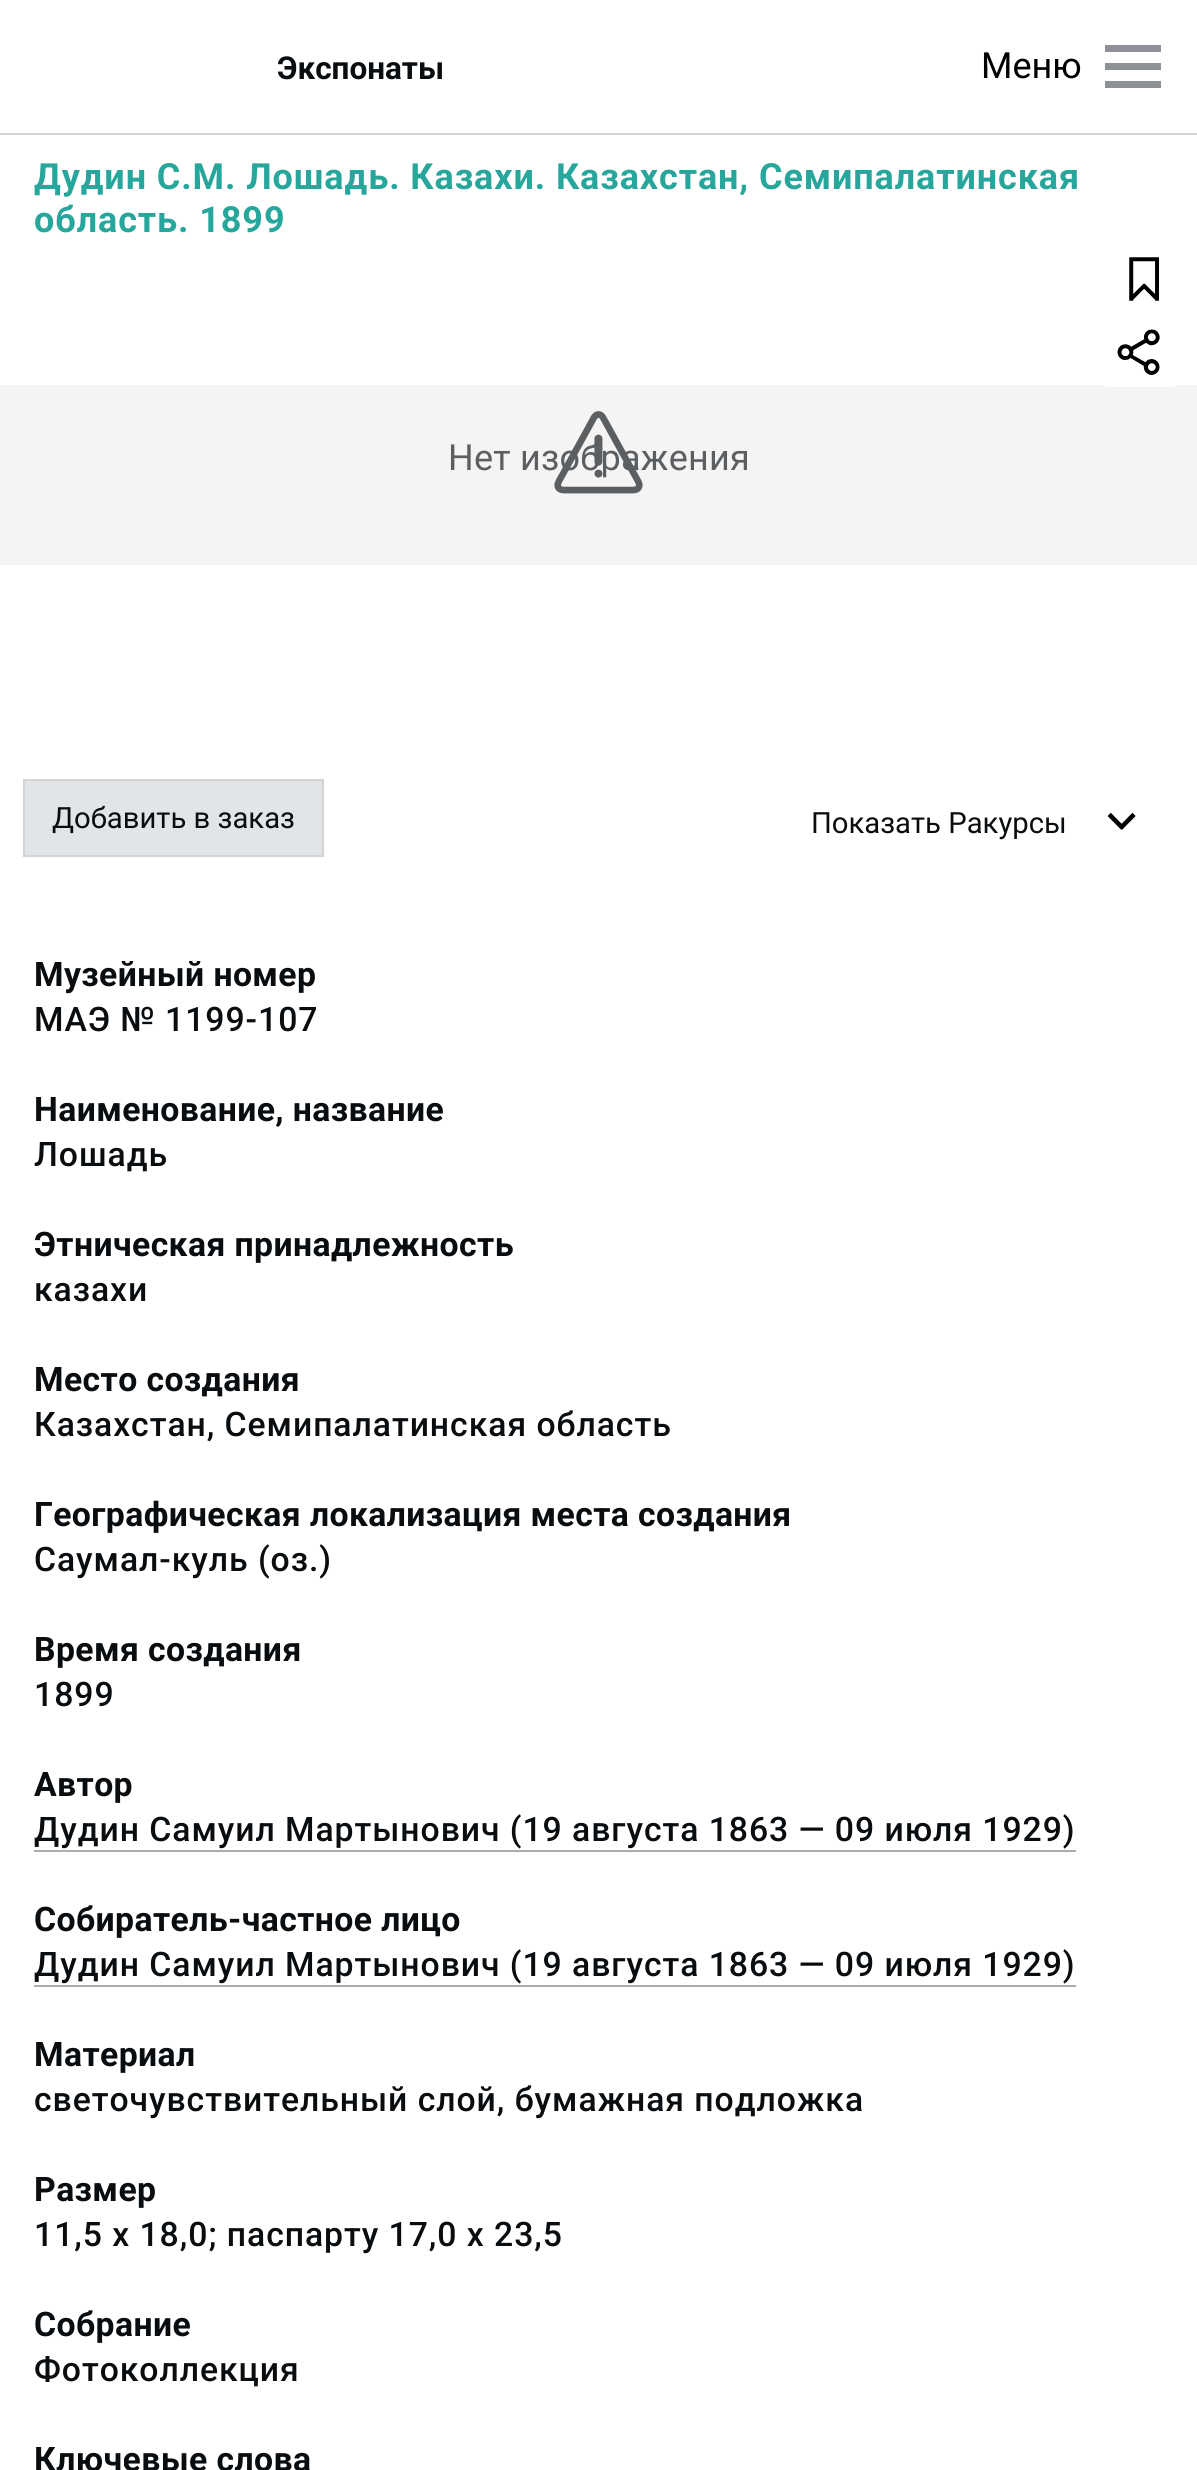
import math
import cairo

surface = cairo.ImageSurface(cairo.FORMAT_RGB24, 1197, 2470)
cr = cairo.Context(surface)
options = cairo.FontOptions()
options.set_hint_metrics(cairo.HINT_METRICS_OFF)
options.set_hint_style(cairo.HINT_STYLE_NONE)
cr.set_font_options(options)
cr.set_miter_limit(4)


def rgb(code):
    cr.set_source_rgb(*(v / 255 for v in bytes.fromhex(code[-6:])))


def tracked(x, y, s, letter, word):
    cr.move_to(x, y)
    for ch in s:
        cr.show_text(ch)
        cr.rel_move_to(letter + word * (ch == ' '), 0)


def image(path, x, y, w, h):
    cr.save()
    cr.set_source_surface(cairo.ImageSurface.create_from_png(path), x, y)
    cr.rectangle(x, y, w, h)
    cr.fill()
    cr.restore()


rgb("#ffffff")
cr.paint()
for x, y, w, h, color in [
    (0, 133, 1197, 2, "#d3d3d3"),
    (1105, 45, 56, 7, "#8e9195"),
    (1105, 63, 56, 7, "#8e9195"),
    (1105, 81, 56, 7, "#8e9195"),
    (0, 385, 1197, 180, "#f4f4f5"),
]:
    rgb(color)
    cr.rectangle(x, y, w, h)
    cr.fill()
rgb("#e2e5e8")
cr.rectangle(24, 780, 299, 76)
cr.fill_preserve()
rgb("#d3d3d3")
cr.stroke()
image("img/2.png", 1107, 812, 29, 18)
rgb("#ffffff")
cr.rectangle(1105, 385, 70, 2)
cr.fill()
image("img/3.png", 1129, 257, 30, 44)
image("img/4.png", 1117, 329, 43, 46)
rgb("#acacac")
cr.rectangle(34, 1850, 1042, 2)
cr.fill()
cr.rectangle(34, 1985, 1042, 2)
cr.fill()
cr.select_font_face("Roboto", cairo.FONT_SLANT_NORMAL, cairo.FONT_WEIGHT_BOLD)
cr.set_font_size(31.5)
rgb("#0a0d10")
cr.move_to(277, 79)
cr.show_text("Экспонаты")
cr.select_font_face("Roboto")
cr.set_font_size(36)
rgb("#000000")
cr.move_to(981, 78)
cr.show_text("Меню")
cr.select_font_face("Roboto", cairo.FONT_SLANT_NORMAL, cairo.FONT_WEIGHT_BOLD)
rgb("#27a79c")
tracked(34, 189, "Дудин С.М. Лошадь. Казахи. Казахстан, Семипалатинская", 0.9, 0)
tracked(34, 232, "область. 1899", 0.9, 0)
cr.select_font_face("Roboto")
rgb("#5c5f62")
tracked(448, 470, "Нет изображения", 0.25, 0)
image("img/1.png", 554, 411, 89, 83)
cr.set_font_size(29.25)
rgb("#0a0d10")
cr.move_to(52, 828)
cr.show_text("Добавить в заказ")
cr.move_to(811, 833)
cr.show_text("Показать Ракурсы")
cr.select_font_face("Roboto", cairo.FONT_SLANT_NORMAL, cairo.FONT_WEIGHT_BOLD)
cr.set_font_size(33.75)
tracked(34, 986, "Музейный номер", 0.4, 0)
cr.select_font_face("Roboto Medium")
tracked(34, 1031, "МАЭ № 1199-107", 0.95, 0)
cr.select_font_face("Roboto", cairo.FONT_SLANT_NORMAL, cairo.FONT_WEIGHT_BOLD)
tracked(34, 1121, "Наименование, название", 0.4, 0)
cr.select_font_face("Roboto Medium")
tracked(34, 1166, "Лошадь", 0.95, 0)
cr.select_font_face("Roboto", cairo.FONT_SLANT_NORMAL, cairo.FONT_WEIGHT_BOLD)
tracked(34, 1256, "Этническая принадлежность", 0.4, 0)
cr.select_font_face("Roboto Medium")
tracked(34, 1301, "казахи", 0.95, 0)
cr.select_font_face("Roboto", cairo.FONT_SLANT_NORMAL, cairo.FONT_WEIGHT_BOLD)
tracked(34, 1391, "Место создания", 0.4, 0)
cr.select_font_face("Roboto Medium")
tracked(34, 1436, "Казахстан, Семипалатинская область", 0.95, 0)
cr.select_font_face("Roboto", cairo.FONT_SLANT_NORMAL, cairo.FONT_WEIGHT_BOLD)
tracked(34, 1526, "Географическая локализация места создания", 0.4, 0)
cr.select_font_face("Roboto Medium")
tracked(34, 1571, "Саумал-куль (оз.)", 0.95, 0)
cr.select_font_face("Roboto", cairo.FONT_SLANT_NORMAL, cairo.FONT_WEIGHT_BOLD)
tracked(34, 1661, "Время создания", 0.4, 0)
cr.select_font_face("Roboto Medium")
tracked(34, 1706, "1899", 0.95, 0)
cr.select_font_face("Roboto", cairo.FONT_SLANT_NORMAL, cairo.FONT_WEIGHT_BOLD)
tracked(34, 1796, "Автор", 0.4, 0)
cr.select_font_face("Roboto Medium")
tracked(34, 1841, "Дудин Самуил Мартынович (19 августа 1863 — 09 июля 1929)", 0.95, 0)
cr.select_font_face("Roboto", cairo.FONT_SLANT_NORMAL, cairo.FONT_WEIGHT_BOLD)
tracked(34, 1931, "Собиратель-частное лицо", 0.4, 0)
cr.select_font_face("Roboto Medium")
tracked(34, 1976, "Дудин Самуил Мартынович (19 августа 1863 — 09 июля 1929)", 0.95, 0)
cr.select_font_face("Roboto", cairo.FONT_SLANT_NORMAL, cairo.FONT_WEIGHT_BOLD)
tracked(34, 2066, "Материал", 0.4, 0)
cr.select_font_face("Roboto Medium")
tracked(34, 2111, "светочувствительный слой, бумажная подложка", 0.95, 0)
cr.select_font_face("Roboto", cairo.FONT_SLANT_NORMAL, cairo.FONT_WEIGHT_BOLD)
tracked(34, 2201, "Размер", 0.4, 0)
cr.select_font_face("Roboto Medium")
tracked(34, 2246, "11,5 х 18,0; паспарту 17,0 х 23,5", 0.95, 0)
cr.select_font_face("Roboto", cairo.FONT_SLANT_NORMAL, cairo.FONT_WEIGHT_BOLD)
tracked(34, 2336, "Собрание", 0.4, 0)
cr.select_font_face("Roboto Medium")
tracked(34, 2381, "Фотоколлекция", 0.95, 0)
cr.select_font_face("Roboto", cairo.FONT_SLANT_NORMAL, cairo.FONT_WEIGHT_BOLD)
tracked(34, 2471, "Ключевые слова", 0.4, 0)
surface.write_to_png("page.png")
